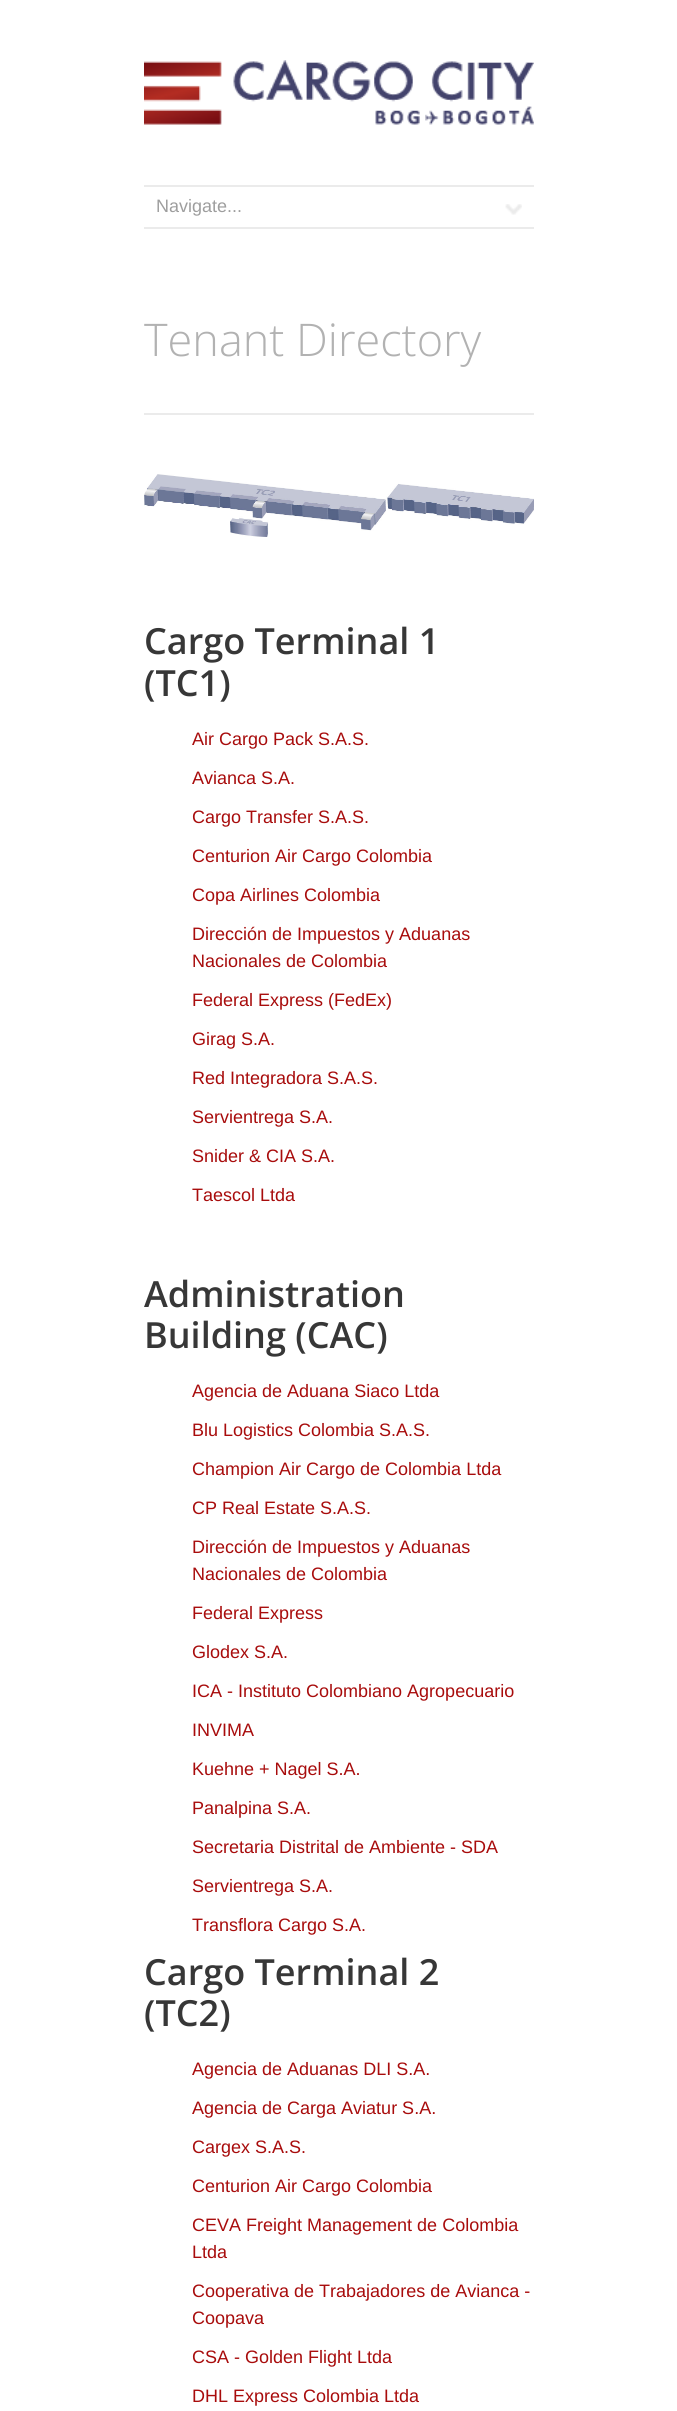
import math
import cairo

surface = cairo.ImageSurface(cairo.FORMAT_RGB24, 677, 2411)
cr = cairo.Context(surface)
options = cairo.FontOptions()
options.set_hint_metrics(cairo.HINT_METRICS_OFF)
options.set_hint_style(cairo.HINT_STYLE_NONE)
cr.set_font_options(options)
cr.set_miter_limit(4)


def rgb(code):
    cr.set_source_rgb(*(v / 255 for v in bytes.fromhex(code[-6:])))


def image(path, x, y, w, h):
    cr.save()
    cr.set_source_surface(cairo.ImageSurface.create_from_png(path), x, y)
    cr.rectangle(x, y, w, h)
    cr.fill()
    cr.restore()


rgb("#ffffff")
cr.paint()
image("img/1.png", 144, 60, 390, 65)
image("img/2.png", 505, 204, 17, 11)
for x, y, w, h, color in [
    (144, 185, 390, 2, "#ebebeb"),
    (144, 227, 390, 2, "#ebebeb"),
    (144, 413, 390, 2, "#ebebeb"),
]:
    rgb(color)
    cr.rectangle(x, y, w, h)
    cr.fill()
image("img/3.png", 144, 474, 390, 63)
cr.select_font_face("Liberation Sans")
cr.set_font_size(18)
rgb("#9e9e9e")
cr.move_to(156, 212)
cr.show_text("Navigate...")
cr.select_font_face("Open Sans Light")
cr.set_font_size(45)
rgb("#b2b2b2")
cr.move_to(144, 356)
cr.show_text("Tenant Directory")
cr.select_font_face("Open Sans SemiBold")
cr.set_font_size(36)
rgb("#373737")
cr.move_to(144, 654)
cr.show_text("Cargo Terminal 1")
cr.move_to(144, 696)
cr.show_text("(TC1)")
cr.select_font_face("Liberation Sans")
cr.set_font_size(18)
rgb("#a80c0c")
for x, y, s in [
    (192, 745, "Air Cargo Pack S.A.S."),
    (192, 784, "Avianca S.A."),
    (192, 823, "Cargo Transfer S.A.S."),
    (192, 862, "Centurion Air Cargo Colombia"),
    (192, 901, "Copa Airlines Colombia"),
    (192, 940, "Dirección de Impuestos y Aduanas"),
    (192, 967, "Nacionales de Colombia"),
    (192, 1006, "Federal Express (FedEx)"),
    (192, 1045, "Girag S.A."),
    (192, 1084, "Red Integradora S.A.S."),
    (192, 1123, "Servientrega S.A."),
    (192, 1162, "Snider & CIA S.A."),
    (192, 1201, "Taescol Ltda"),
]:
    cr.move_to(x, y)
    cr.show_text(s)
cr.select_font_face("Open Sans SemiBold")
cr.set_font_size(36)
rgb("#373737")
cr.move_to(144, 1307)
cr.show_text("Administration")
cr.move_to(144, 1348)
cr.show_text("Building (CAC)")
cr.select_font_face("Liberation Sans")
cr.set_font_size(18)
rgb("#a80c0c")
for x, y, s in [
    (192, 1397, "Agencia de Aduana Siaco Ltda"),
    (192, 1436, "Blu Logistics Colombia S.A.S."),
    (192, 1475, "Champion Air Cargo de Colombia Ltda"),
    (192, 1514, "CP Real Estate S.A.S."),
    (192, 1553, "Dirección de Impuestos y Aduanas"),
    (192, 1580, "Nacionales de Colombia"),
    (192, 1619, "Federal Express"),
    (192, 1658, "Glodex S.A."),
    (192, 1697, "ICA - Instituto Colombiano Agropecuario"),
    (192, 1736, "INVIMA"),
    (192, 1775, "Kuehne + Nagel S.A."),
    (192, 1814, "Panalpina S.A."),
    (192, 1853, "Secretaria Distrital de Ambiente - SDA"),
    (192, 1892, "Servientrega S.A."),
    (192, 1931, "Transflora Cargo S.A."),
]:
    cr.move_to(x, y)
    cr.show_text(s)
cr.select_font_face("Open Sans SemiBold")
cr.set_font_size(36)
rgb("#373737")
cr.move_to(144, 1985)
cr.show_text("Cargo Terminal 2")
cr.move_to(144, 2026)
cr.show_text("(TC2)")
cr.select_font_face("Liberation Sans")
cr.set_font_size(18)
rgb("#a80c0c")
for x, y, s in [
    (192, 2075, "Agencia de Aduanas DLI S.A."),
    (192, 2114, "Agencia de Carga Aviatur S.A."),
    (192, 2153, "Cargex S.A.S."),
    (192, 2192, "Centurion Air Cargo Colombia"),
    (192, 2231, "CEVA Freight Management de Colombia"),
    (192, 2258, "Ltda"),
    (192, 2297, "Cooperativa de Trabajadores de Avianca -"),
    (192, 2324, "Coopava"),
    (192, 2363, "CSA - Golden Flight Ltda"),
    (192, 2402, "DHL Express Colombia Ltda"),
]:
    cr.move_to(x, y)
    cr.show_text(s)
surface.write_to_png("page.png")
